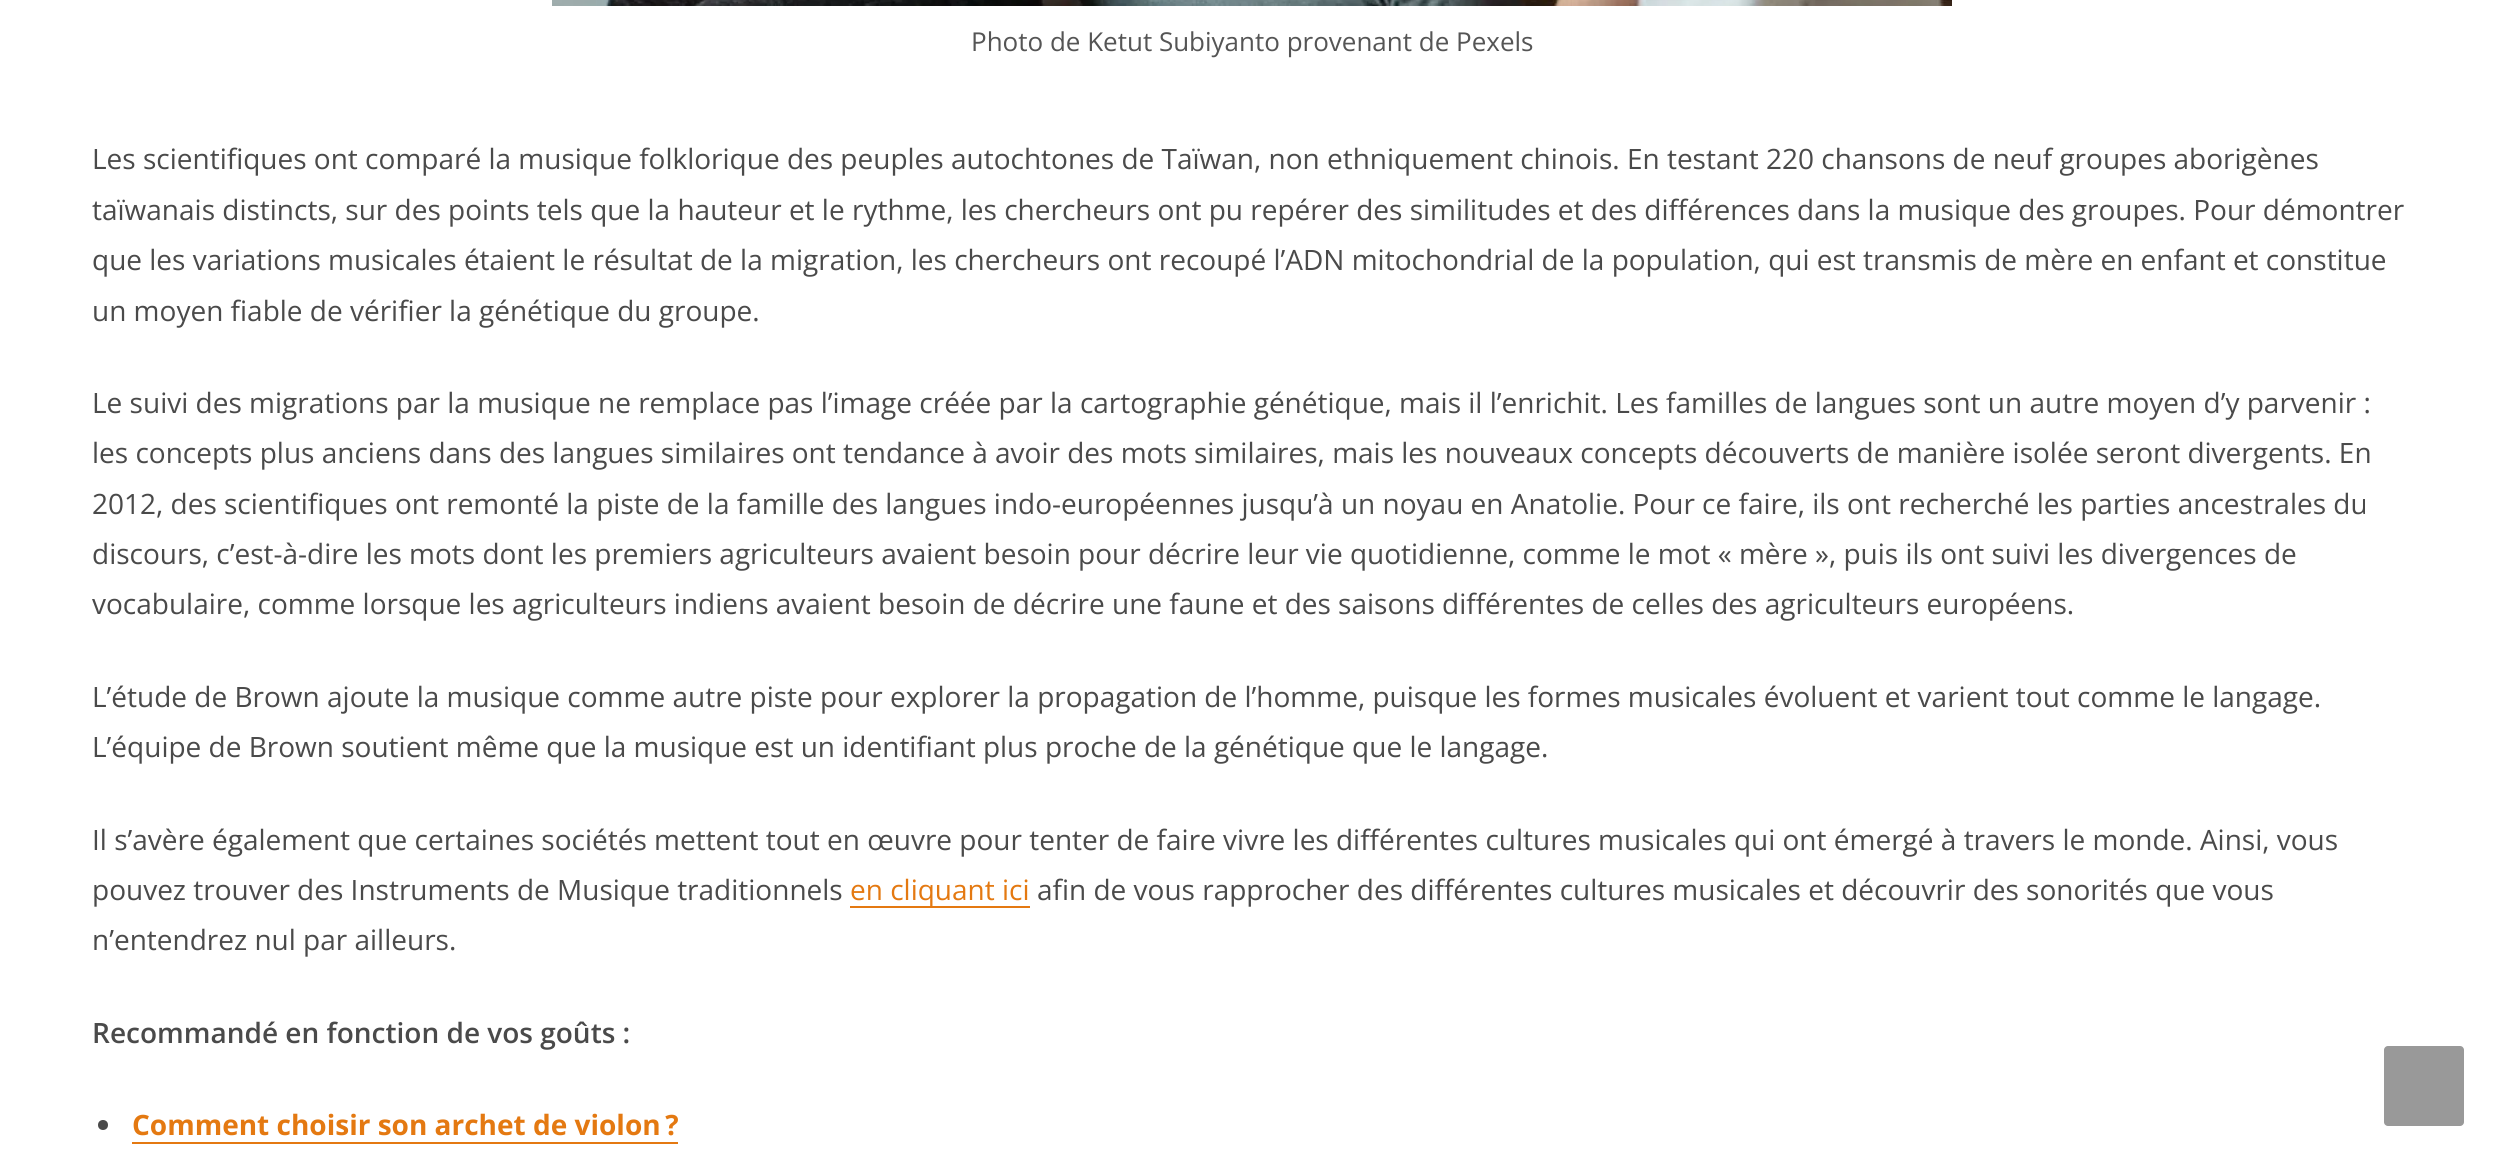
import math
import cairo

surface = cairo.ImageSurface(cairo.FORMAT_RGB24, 2504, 1166)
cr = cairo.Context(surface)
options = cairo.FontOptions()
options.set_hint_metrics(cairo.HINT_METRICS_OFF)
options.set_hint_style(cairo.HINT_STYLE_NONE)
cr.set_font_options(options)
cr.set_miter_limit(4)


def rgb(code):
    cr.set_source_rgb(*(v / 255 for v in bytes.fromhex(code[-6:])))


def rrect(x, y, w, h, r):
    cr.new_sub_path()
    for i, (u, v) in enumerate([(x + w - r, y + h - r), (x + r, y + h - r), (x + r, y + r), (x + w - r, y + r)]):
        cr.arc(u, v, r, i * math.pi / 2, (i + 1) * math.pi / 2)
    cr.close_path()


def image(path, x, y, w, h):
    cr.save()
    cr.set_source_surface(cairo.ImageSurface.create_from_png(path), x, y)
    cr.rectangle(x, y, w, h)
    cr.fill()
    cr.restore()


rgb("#ffffff")
cr.paint()
image("img/1.png", 552, 0, 1400, 6)
rgb("#e47911")
cr.rectangle(850, 906, 180, 2)
cr.fill()
rgb("#4a4a4a")
cr.arc(103, 1125, 5, 0, 2 * math.pi)
cr.fill()
rgb("#e47911")
cr.rectangle(132, 1142, 546, 2)
cr.fill()
rgb("#999999")
rrect(2384, 1046, 80, 80, 4)
cr.fill()
cr.select_font_face("Open Sans")
cr.set_font_size(26)
rgb("#555555")
cr.move_to(971, 51)
cr.show_text("Photo de Ketut Subiyanto provenant de Pexels")
cr.set_font_size(28)
rgb("#4a4a4a")
for x, y, s in [
    (92, 169, "Les scientifiques ont comparé la musique folklorique des peuples autochtones de Taïwan, non ethniquement chinois. En testant 220 chansons de neuf groupes aborigènes"),
    (92, 220, "taïwanais distincts, sur des points tels que la hauteur et le rythme, les chercheurs ont pu repérer des similitudes et des différences dans la musique des groupes. Pour démontrer"),
    (92, 270, "que les variations musicales étaient le résultat de la migration, les chercheurs ont recoupé l’ADN mitochondrial de la population, qui est transmis de mère en enfant et constitue"),
    (92, 321, "un moyen fiable de vérifier la génétique du groupe."),
    (92, 413, "Le suivi des migrations par la musique ne remplace pas l’image créée par la cartographie génétique, mais il l’enrichit. Les familles de langues sont un autre moyen d’y parvenir :"),
    (92, 463, "les concepts plus anciens dans des langues similaires ont tendance à avoir des mots similaires, mais les nouveaux concepts découverts de manière isolée seront divergents. En"),
    (92, 514, "2012, des scientifiques ont remonté la piste de la famille des langues indo-européennes jusqu’à un noyau en Anatolie. Pour ce faire, ils ont recherché les parties ancestrales du"),
    (92, 564, "discours, c’est-à-dire les mots dont les premiers agriculteurs avaient besoin pour décrire leur vie quotidienne, comme le mot « mère », puis ils ont suivi les divergences de"),
    (92, 614, "vocabulaire, comme lorsque les agriculteurs indiens avaient besoin de décrire une faune et des saisons différentes de celles des agriculteurs européens."),
    (92, 707, "L’étude de Brown ajoute la musique comme autre piste pour explorer la propagation de l’homme, puisque les formes musicales évoluent et varient tout comme le langage."),
    (92, 757, "L’équipe de Brown soutient même que la musique est un identifiant plus proche de la génétique que le langage."),
    (92, 850, "Il s’avère également que certaines sociétés mettent tout en œuvre pour tenter de faire vivre les différentes cultures musicales qui ont émergé à travers le monde. Ainsi, vous"),
    (92, 900, "pouvez trouver des Instruments de Musique traditionnels"),
]:
    cr.move_to(x, y)
    cr.show_text(s)
rgb("#e47911")
cr.move_to(850, 900)
cr.show_text("en cliquant ici")
rgb("#4a4a4a")
cr.move_to(1037, 900)
cr.show_text("afin de vous rapprocher des différentes cultures musicales et découvrir des sonorités que vous")
cr.move_to(92, 950)
cr.show_text("n’entendrez nul par ailleurs.")
cr.select_font_face("Open Sans SemiBold")
cr.move_to(92, 1043)
cr.show_text("Recommandé en fonction de vos goûts :")
cr.select_font_face("Open Sans", cairo.FONT_SLANT_NORMAL, cairo.FONT_WEIGHT_BOLD)
rgb("#e47911")
cr.move_to(132, 1135)
cr.show_text("Comment choisir son archet de violon ?")
surface.write_to_png("page.png")
